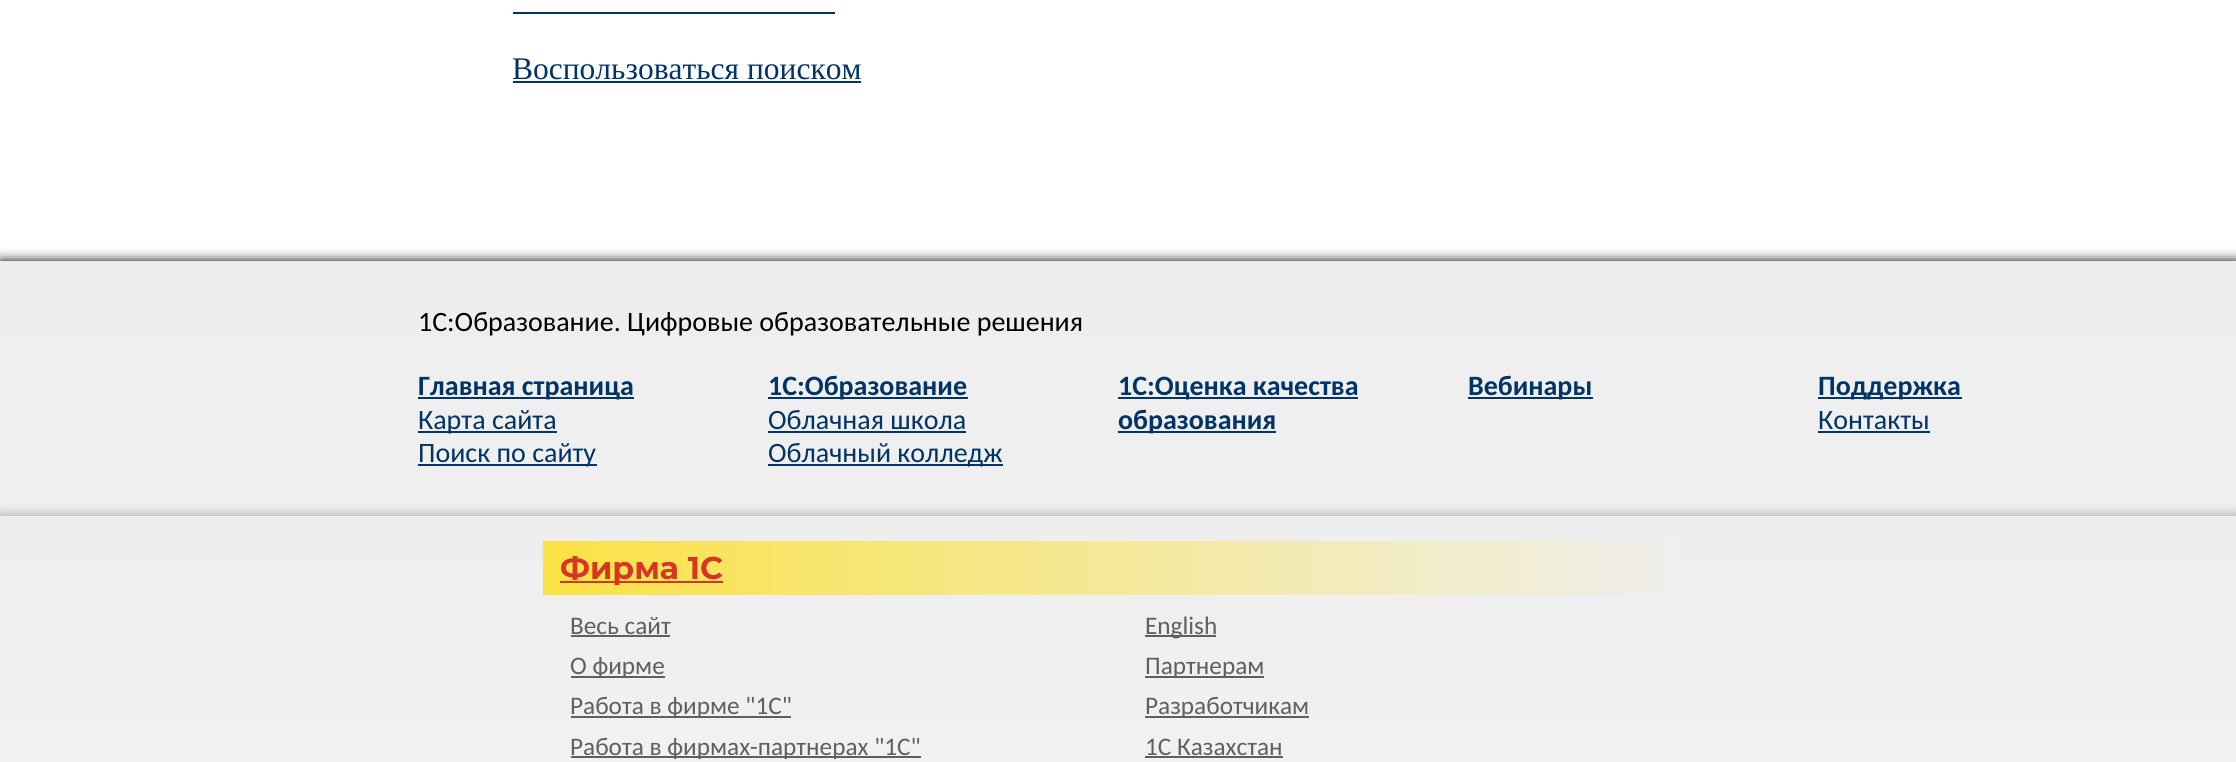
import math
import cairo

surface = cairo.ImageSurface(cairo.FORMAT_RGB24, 2236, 762)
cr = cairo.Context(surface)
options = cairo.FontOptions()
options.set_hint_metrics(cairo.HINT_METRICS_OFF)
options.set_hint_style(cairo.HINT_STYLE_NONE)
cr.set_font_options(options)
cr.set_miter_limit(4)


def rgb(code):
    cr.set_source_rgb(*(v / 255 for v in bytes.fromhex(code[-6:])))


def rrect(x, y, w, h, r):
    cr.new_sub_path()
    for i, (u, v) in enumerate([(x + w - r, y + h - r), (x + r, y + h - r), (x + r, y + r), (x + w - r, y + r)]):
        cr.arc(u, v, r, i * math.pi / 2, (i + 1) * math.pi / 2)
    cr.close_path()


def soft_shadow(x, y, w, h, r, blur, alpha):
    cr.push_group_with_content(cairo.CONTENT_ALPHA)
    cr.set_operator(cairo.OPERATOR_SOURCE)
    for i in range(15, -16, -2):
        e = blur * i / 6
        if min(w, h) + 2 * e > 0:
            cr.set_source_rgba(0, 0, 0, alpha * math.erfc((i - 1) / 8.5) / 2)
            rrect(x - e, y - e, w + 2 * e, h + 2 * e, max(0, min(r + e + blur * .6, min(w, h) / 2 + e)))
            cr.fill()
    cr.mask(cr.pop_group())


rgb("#ffffff")
cr.paint()
rgb("#003366")
cr.rectangle(513, 12, 322, 2)
cr.fill()
cr.rectangle(513, 81, 348, 2)
cr.fill()
rgb("#000000")
soft_shadow(0, 261, 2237, 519, 0, 6, 1)
gradient = cairo.LinearGradient(1118, 262, 1118, 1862)
gradient.add_color_stop_rgba(0, 0.933, 0.933, 0.933, 1)
gradient.add_color_stop_rgba(1, 0.98, 0.98, 0.98, 1)
cr.set_source(gradient)
cr.rectangle(0, 263, 2236, 253)
cr.fill()
for x, y, w, h, color in [
    (0, 261, 2236, 2, "#eeeeee"),
    (418, 397, 216, 2, "#003366"),
    (418, 431, 139, 2, "#003366"),
    (418, 464, 179, 2, "#003366"),
    (768, 397, 200, 2, "#003366"),
    (768, 431, 198, 2, "#003366"),
    (768, 464, 235, 2, "#003366"),
    (1118, 397, 240, 2, "#003366"),
    (1118, 431, 158, 2, "#003366"),
    (1468, 397, 125, 2, "#003366"),
    (1818, 397, 144, 2, "#003366"),
    (1818, 431, 112, 2, "#003366"),
]:
    rgb(color)
    cr.rectangle(x, y, w, h)
    cr.fill()
rgb("#999999")
soft_shadow(0, 516, 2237, 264, 0, 6, 1)
gradient = cairo.LinearGradient(1118, 516, 1118, 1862)
gradient.add_color_stop_rgba(0, 0.933, 0.933, 0.933, 1)
gradient.add_color_stop_rgba(1, 1, 1, 1, 1)
cr.set_source(gradient)
cr.rectangle(0, 516, 2236, 246)
cr.fill()
gradient = cairo.LinearGradient(543, 568, 1694, 568)
gradient.add_color_stop_rgba(0, 0.984, 0.886, 0.271, 1)
gradient.add_color_stop_rgba(1, 0.937, 0.937, 0.937, 1)
cr.set_source(gradient)
cr.rectangle(543, 541, 1134, 54)
cr.fill()
for x, y, w, h, color in [
    (560, 581, 163, 2, "#d83524"),
    (571, 635, 99, 2, "#5f5f5f"),
    (571, 676, 94, 2, "#5f5f5f"),
    (571, 716, 220, 2, "#5f5f5f"),
    (571, 756, 350, 2, "#5f5f5f"),
    (1145, 635, 71, 2, "#5f5f5f"),
    (1145, 676, 119, 2, "#5f5f5f"),
    (1145, 716, 164, 2, "#5f5f5f"),
    (1145, 756, 138, 2, "#5f5f5f"),
]:
    rgb(color)
    cr.rectangle(x, y, w, h)
    cr.fill()
cr.select_font_face("Liberation Serif")
cr.set_font_size(31.5)
rgb("#003366")
cr.move_to(512, 79)
cr.show_text("Воспользоваться поиском")
cr.select_font_face("Carlito")
cr.set_font_size(28)
rgb("#000000")
cr.move_to(418, 331)
cr.show_text("1С:Образование. Цифровые образовательные решения")
cr.select_font_face("Carlito", cairo.FONT_SLANT_NORMAL, cairo.FONT_WEIGHT_BOLD)
rgb("#003366")
cr.move_to(418, 395)
cr.show_text("Главная страница")
cr.select_font_face("Carlito")
cr.move_to(418, 429)
cr.show_text("Карта сайта")
cr.move_to(418, 462)
cr.show_text("Поиск по сайту")
cr.select_font_face("Carlito", cairo.FONT_SLANT_NORMAL, cairo.FONT_WEIGHT_BOLD)
cr.move_to(768, 395)
cr.show_text("1С:Образование")
cr.select_font_face("Carlito")
cr.move_to(768, 429)
cr.show_text("Облачная школа")
cr.move_to(768, 462)
cr.show_text("Облачный колледж")
cr.select_font_face("Carlito", cairo.FONT_SLANT_NORMAL, cairo.FONT_WEIGHT_BOLD)
for x, y, s in [
    (1118, 395, "1С:Оценка качества"),
    (1118, 429, "образования"),
    (1468, 395, "Вебинары"),
    (1818, 395, "Поддержка"),
]:
    cr.move_to(x, y)
    cr.show_text(s)
cr.select_font_face("Carlito")
cr.move_to(1818, 429)
cr.show_text("Контакты")
cr.select_font_face("Montserrat", cairo.FONT_SLANT_NORMAL, cairo.FONT_WEIGHT_BOLD)
cr.set_font_size(31.5)
rgb("#d83524")
cr.move_to(560, 579)
cr.show_text("Фирма 1С")
cr.select_font_face("Carlito")
cr.set_font_size(25.25)
rgb("#5f5f5f")
for x, y, s in [
    (570, 634, "Весь сайт"),
    (570, 674, "О фирме"),
    (570, 714, "Работа в фирме \"1С\""),
    (570, 755, "Работа в фирмах-партнерах \"1С\""),
    (1145, 634, "English"),
    (1145, 674, "Партнерам"),
    (1145, 714, "Разработчикам"),
    (1145, 755, "1С Казахстан"),
]:
    cr.move_to(x, y)
    cr.show_text(s)
surface.write_to_png("page.png")
